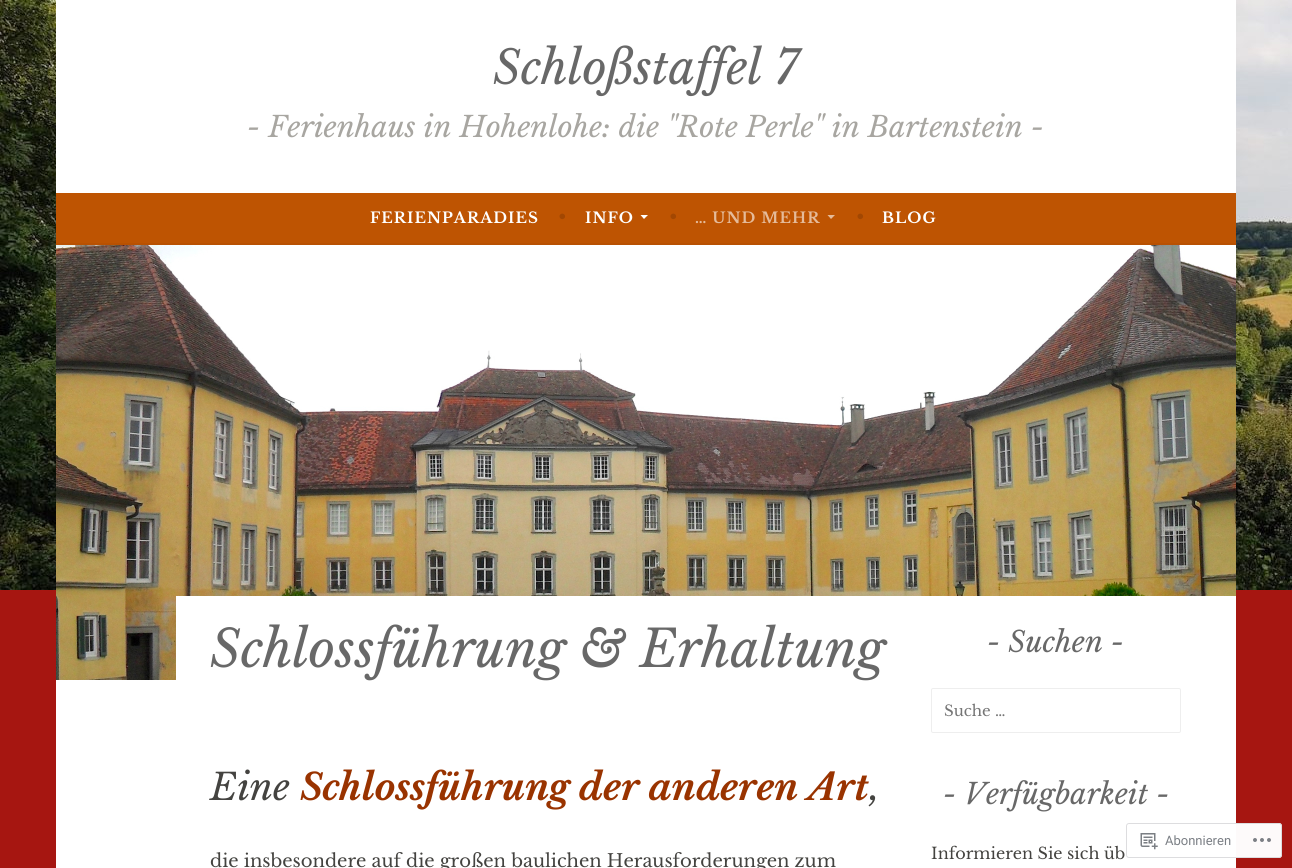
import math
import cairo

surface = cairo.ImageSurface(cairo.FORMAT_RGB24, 1292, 868)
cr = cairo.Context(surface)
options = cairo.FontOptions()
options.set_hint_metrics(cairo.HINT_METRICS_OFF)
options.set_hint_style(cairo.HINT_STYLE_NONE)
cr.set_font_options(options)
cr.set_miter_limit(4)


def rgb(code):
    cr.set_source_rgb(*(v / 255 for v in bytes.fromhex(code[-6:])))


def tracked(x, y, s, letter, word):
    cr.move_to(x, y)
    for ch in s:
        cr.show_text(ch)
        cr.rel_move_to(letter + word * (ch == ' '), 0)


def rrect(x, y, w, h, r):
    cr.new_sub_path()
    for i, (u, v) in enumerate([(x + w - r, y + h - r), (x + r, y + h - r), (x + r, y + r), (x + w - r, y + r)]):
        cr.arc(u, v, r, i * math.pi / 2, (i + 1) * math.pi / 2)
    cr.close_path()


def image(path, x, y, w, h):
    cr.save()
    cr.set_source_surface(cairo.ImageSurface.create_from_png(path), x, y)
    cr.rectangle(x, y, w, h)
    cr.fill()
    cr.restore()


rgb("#a61611")
cr.paint()
image("img/1.png", 0, 0, 1292, 590)
for x, y, w, h, color in [
    (56, 0, 1180, 193, "#ffffff"),
    (56, 193, 1180, 50, "#be5402"),
    (56, 243, 1180, 2, "#b85102"),
]:
    rgb(color)
    cr.rectangle(x, y, w, h)
    cr.fill()
rgb("#ffffff")
cr.new_path()
cr.move_to(640.5, 215)
cr.line_to(648, 215)
cr.line_to(644, 219)
cr.close_path()
cr.fill()
rgb("#e5bb9a")
cr.new_path()
cr.move_to(827.5, 215)
cr.line_to(835, 215)
cr.line_to(831, 219)
cr.close_path()
cr.fill()
rgb("#ffffff")
cr.rectangle(56, 680, 120, 188)
cr.fill()
image("img/2.png", 56, 245, 1180, 435)
cr.rectangle(176, 596, 1060, 272)
cr.fill()
rrect(931.5, 688.5, 249, 44, 1.5)
rgb("#eeeeee")
cr.set_line_width(1)
cr.stroke()
cr.set_source_rgba(1, 1, 1, 0.98)
rrect(1126, 823, 156, 35, 3)
cr.fill()
rrect(1126.5, 823.5, 155, 34, 2.5)
cr.set_source_rgba(0.863, 0.863, 0.871, 0.98)
cr.stroke()
image("img/3.png", 1140, 833, 18, 17)
image("img/4.png", 1253, 838, 18, 4)
cr.select_font_face("Libre Baskerville", cairo.FONT_SLANT_ITALIC)
cr.set_font_size(46.5)
rgb("#686868")
cr.move_to(493, 84)
cr.show_text("Schloßstaffel 7")
cr.set_font_size(28.8)
rgb("#a8a6a1")
cr.move_to(247, 137)
cr.show_text("- Ferienhaus in Hohenlohe: die \"Rote Perle\" in Bartenstein -")
cr.select_font_face("Libre Baskerville", cairo.FONT_SLANT_NORMAL, cairo.FONT_WEIGHT_BOLD)
cr.set_font_size(15)
rgb("#ffffff")
tracked(370, 223, "FERIENPARADIES", 1, 0)
cr.select_font_face("Libre Baskerville")
cr.set_font_size(18)
rgb("#a24702")
cr.move_to(558, 223)
cr.show_text("•")
cr.select_font_face("Libre Baskerville", cairo.FONT_SLANT_NORMAL, cairo.FONT_WEIGHT_BOLD)
cr.set_font_size(15)
rgb("#ffffff")
tracked(585, 223, "INFO", 1, 0)
cr.select_font_face("Libre Baskerville")
cr.set_font_size(18)
rgb("#a24702")
cr.move_to(669, 223)
cr.show_text("•")
cr.select_font_face("Libre Baskerville", cairo.FONT_SLANT_NORMAL, cairo.FONT_WEIGHT_BOLD)
cr.set_font_size(15)
rgb("#e5bb9a")
tracked(695, 223, "… UND MEHR", 1, 0)
cr.select_font_face("Libre Baskerville")
cr.set_font_size(18)
rgb("#a24702")
cr.move_to(856, 223)
cr.show_text("•")
cr.select_font_face("Libre Baskerville", cairo.FONT_SLANT_NORMAL, cairo.FONT_WEIGHT_BOLD)
cr.set_font_size(15)
rgb("#ffffff")
tracked(882, 223, "BLOG", 1, 0)
cr.select_font_face("Libre Baskerville", cairo.FONT_SLANT_ITALIC)
cr.set_font_size(51.25)
rgb("#686868")
cr.move_to(210, 667)
cr.show_text("Schlossführung & Erhaltung")
cr.set_font_size(36.75)
rgb("#444340")
cr.move_to(210, 800)
cr.show_text("Eine")
cr.select_font_face("Libre Baskerville", cairo.FONT_SLANT_ITALIC, cairo.FONT_WEIGHT_BOLD)
rgb("#993300")
cr.move_to(300, 800)
cr.show_text("Schlossführung der anderen Art")
cr.select_font_face("Libre Baskerville", cairo.FONT_SLANT_ITALIC)
rgb("#444340")
cr.move_to(870, 800)
cr.show_text(",")
cr.select_font_face("Libre Baskerville")
cr.set_font_size(18)
cr.move_to(210, 867)
cr.show_text("die insbesondere auf die großen baulichen Herausforderungen zum")
cr.select_font_face("Libre Baskerville", cairo.FONT_SLANT_ITALIC)
cr.set_font_size(28.8)
rgb("#686868")
cr.move_to(987, 652)
cr.show_text("- Suchen -")
cr.select_font_face("Libre Baskerville")
cr.set_font_size(15)
rgb("#757575")
cr.move_to(944, 716)
cr.show_text("Suche …")
cr.select_font_face("Libre Baskerville", cairo.FONT_SLANT_ITALIC)
cr.set_font_size(28.8)
rgb("#686868")
cr.move_to(943, 804)
cr.show_text("- Verfügbarkeit -")
cr.select_font_face("Libre Baskerville")
cr.set_font_size(16)
rgb("#444340")
cr.move_to(931, 859)
cr.show_text("Informieren Sie sich üb")
cr.select_font_face("Roboto")
cr.set_font_size(13)
rgb("#7b7f85")
cr.move_to(1165, 845)
cr.show_text("Abonnieren")
surface.write_to_png("page.png")
